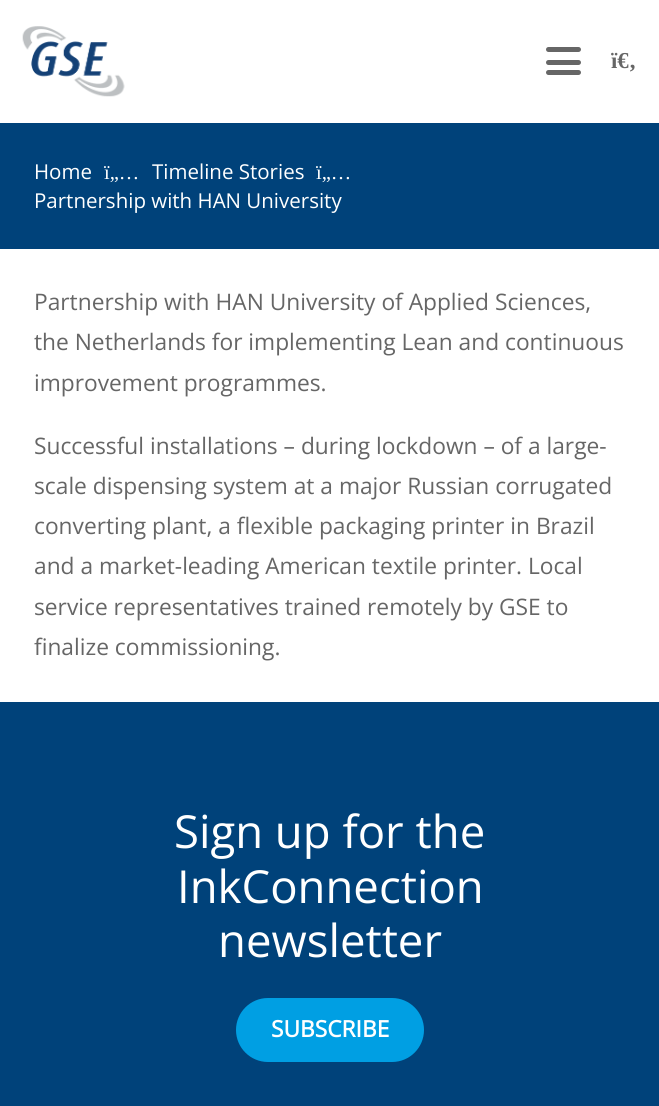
import math
import cairo

surface = cairo.ImageSurface(cairo.FORMAT_RGB24, 659, 1106)
cr = cairo.Context(surface)
options = cairo.FontOptions()
options.set_hint_metrics(cairo.HINT_METRICS_OFF)
options.set_hint_style(cairo.HINT_STYLE_NONE)
cr.set_font_options(options)
cr.set_miter_limit(4)


def rgb(code):
    cr.set_source_rgb(*(v / 255 for v in bytes.fromhex(code[-6:])))


def rrect(x, y, w, h, r):
    cr.new_sub_path()
    for i, (u, v) in enumerate([(x + w - r, y + h - r), (x + r, y + h - r), (x + r, y + r), (x + w - r, y + r)]):
        cr.arc(u, v, r, i * math.pi / 2, (i + 1) * math.pi / 2)
    cr.close_path()


def image(path, x, y, w, h):
    cr.save()
    cr.set_source_surface(cairo.ImageSurface.create_from_png(path), x, y)
    cr.rectangle(x, y, w, h)
    cr.fill()
    cr.restore()


rgb("#ffffff")
cr.paint()
image("img/1.png", 22, 26, 103, 71)
rgb("#666666")
rrect(546, 60, 35, 5, 2.5)
cr.fill()
rrect(546, 47, 35, 5, 2.5)
cr.fill()
rrect(546, 70, 35, 5, 2.5)
cr.fill()
rgb("#00427a")
cr.rectangle(0, 123, 659, 126)
cr.fill()
cr.rectangle(0, 702, 659, 404)
cr.fill()
rgb("#009fe3")
rrect(236, 998, 188, 64, 32)
cr.fill()
cr.select_font_face("Liberation Serif", cairo.FONT_SLANT_NORMAL, cairo.FONT_WEIGHT_BOLD)
cr.set_font_size(22.75)
rgb("#666666")
cr.move_to(611, 68)
cr.show_text("ï€‚")
cr.select_font_face("Open Sans")
cr.set_font_size(20.5)
rgb("#ffffff")
cr.move_to(34, 179)
cr.show_text("Home")
cr.select_font_face("Liberation Serif")
cr.move_to(104, 179)
cr.show_text("ï„…")
cr.select_font_face("Open Sans")
cr.move_to(152, 179)
cr.show_text("Timeline Stories")
cr.select_font_face("Liberation Serif")
cr.move_to(316, 179)
cr.show_text("ï„…")
cr.select_font_face("Open Sans")
cr.move_to(34, 208)
cr.show_text("Partnership with HAN University")
cr.set_font_size(22.75)
rgb("#666666")
for x, y, s in [
    (34, 310, "Partnership with HAN University of Applied Sciences,"),
    (34, 350, "the Netherlands for implementing Lean and continuous"),
    (34, 391, "improvement programmes."),
    (34, 454, "Successful installations – during lockdown – of a large-"),
    (34, 494, "scale dispensing system at a major Russian corrugated"),
    (34, 534, "converting plant, a flexible packaging printer in Brazil"),
    (34, 574, "and a market-leading American textile printer. Local"),
    (34, 615, "service representatives trained remotely by GSE to"),
    (34, 655, "finalize commissioning."),
]:
    cr.move_to(x, y)
    cr.show_text(s)
cr.set_font_size(45.5)
rgb("#ffffff")
for x, y, s in [
    (174, 848, "Sign up for the"),
    (177, 903, "InkConnection"),
    (218, 957, "newsletter"),
]:
    cr.move_to(x, y)
    cr.show_text(s)
cr.select_font_face("Open Sans", cairo.FONT_SLANT_NORMAL, cairo.FONT_WEIGHT_BOLD)
cr.set_font_size(22.75)
cr.move_to(271, 1037)
cr.show_text("SUBSCRIBE")
surface.write_to_png("page.png")
